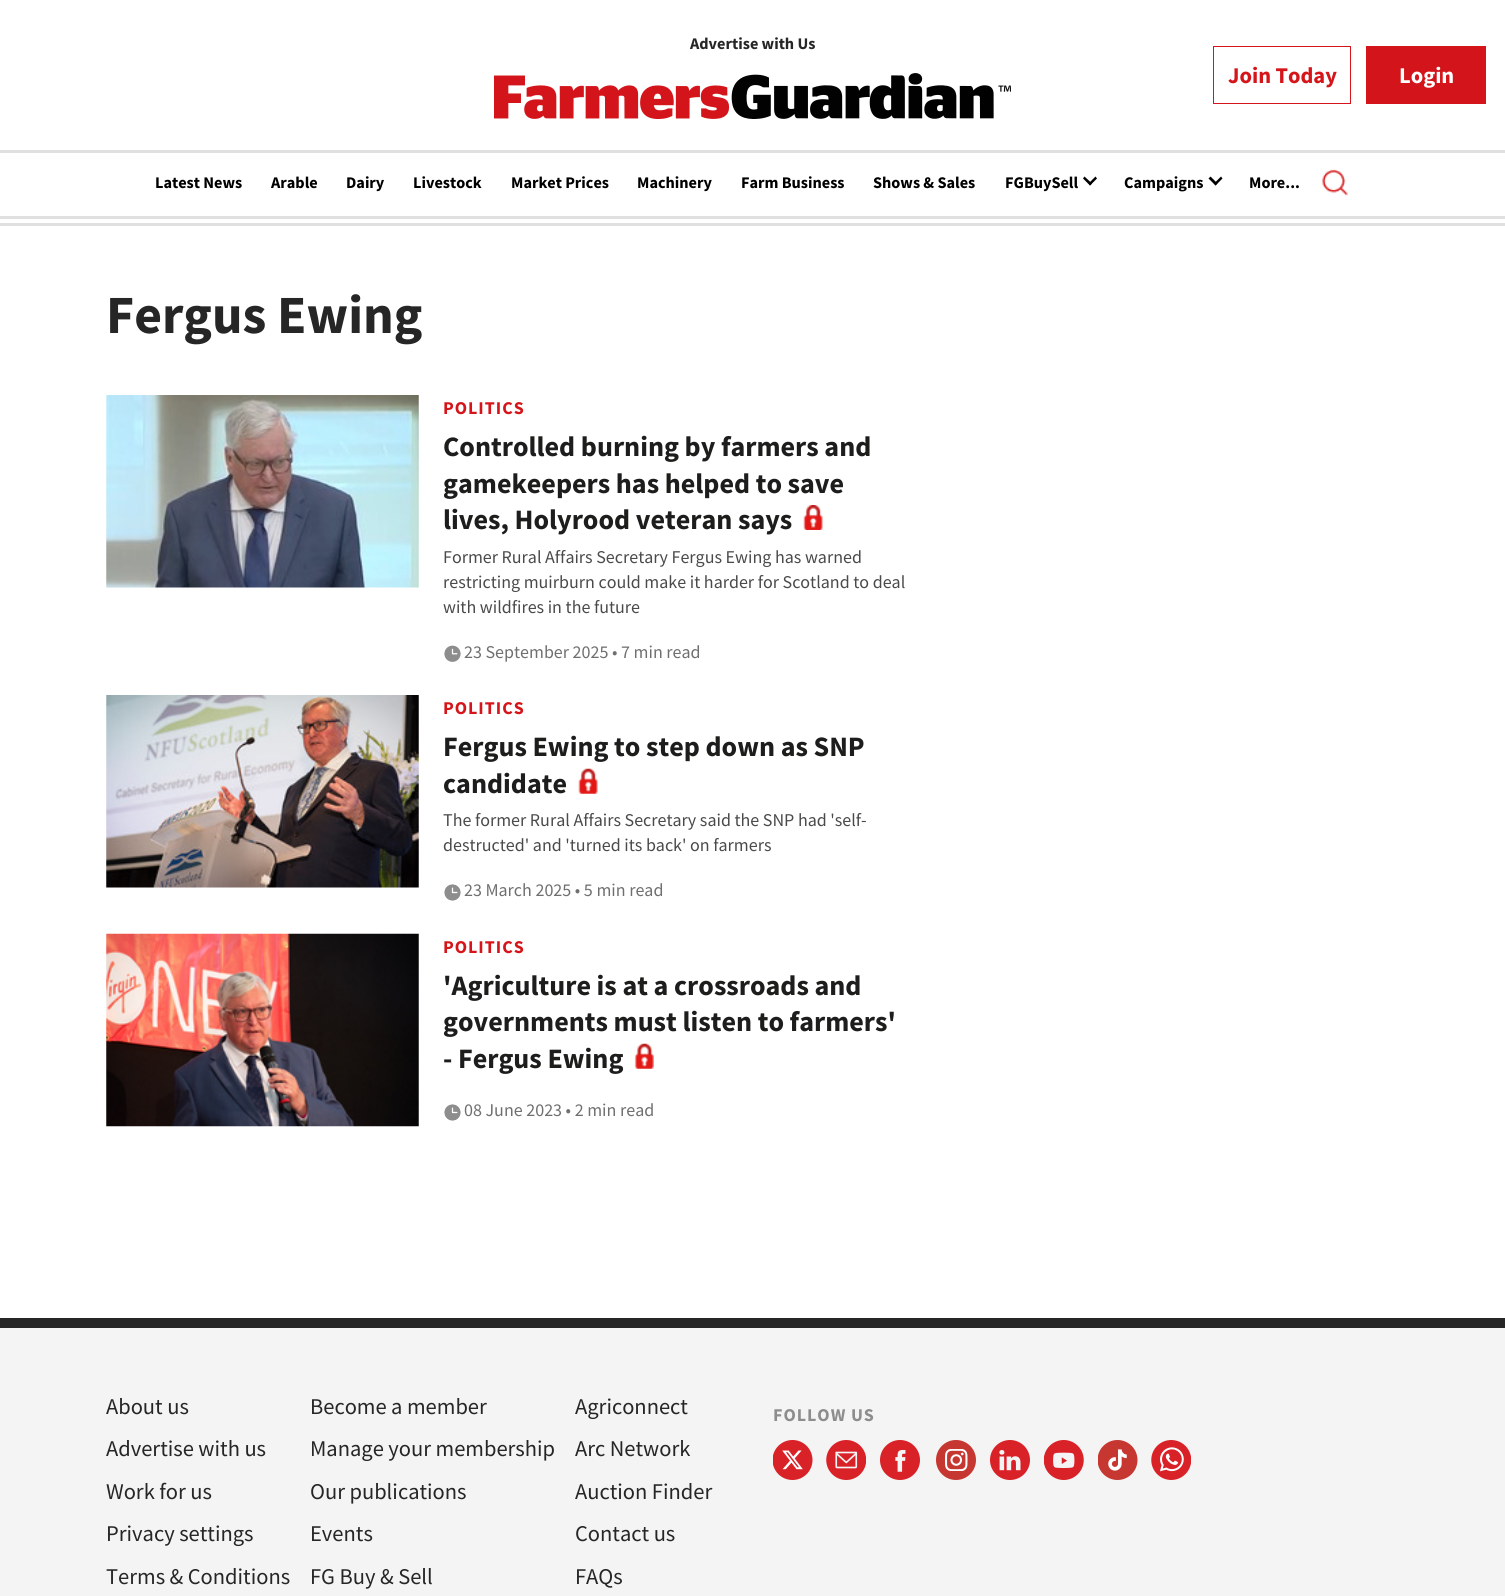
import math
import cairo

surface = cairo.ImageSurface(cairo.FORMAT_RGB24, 1505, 1596)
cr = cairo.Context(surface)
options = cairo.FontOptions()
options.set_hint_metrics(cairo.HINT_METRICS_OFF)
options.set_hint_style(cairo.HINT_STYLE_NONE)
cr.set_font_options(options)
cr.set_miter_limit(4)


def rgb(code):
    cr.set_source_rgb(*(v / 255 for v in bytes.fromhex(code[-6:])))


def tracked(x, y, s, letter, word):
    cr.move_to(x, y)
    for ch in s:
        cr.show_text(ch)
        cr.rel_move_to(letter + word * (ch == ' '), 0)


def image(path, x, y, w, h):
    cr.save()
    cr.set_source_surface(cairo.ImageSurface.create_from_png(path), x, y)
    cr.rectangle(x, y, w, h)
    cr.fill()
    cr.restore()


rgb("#ffffff")
cr.paint()
image("img/1.png", 494, 73, 517, 46)
cr.rectangle(1213.5, 46.5, 137, 57)
rgb("#d5151a")
cr.set_line_width(1)
cr.stroke()
rgb("#d3141a")
cr.rectangle(1366.5, 46.5, 119, 57)
cr.fill_preserve()
rgb("#d5151a")
cr.stroke()
rgb("#e0e0e0")
cr.rectangle(0, 150, 1505, 3)
cr.fill()
cr.rectangle(0, 216, 1505, 3)
cr.fill()
rgb("#000000")
cr.new_path()
cr.move_to(1095.5, 176.5)
cr.line_to(1097, 178.5)
cr.line_to(1090, 185.5)
cr.line_to(1088.5, 183.5)
cr.close_path()
cr.fill()
cr.new_path()
cr.move_to(1084.5, 176.5)
cr.line_to(1092, 183.5)
cr.line_to(1090, 185.5)
cr.line_to(1083, 178.5)
cr.close_path()
cr.fill()
cr.new_path()
cr.move_to(1221, 176.5)
cr.line_to(1222.5, 178.5)
cr.line_to(1215.5, 185.5)
cr.line_to(1214, 183.5)
cr.close_path()
cr.fill()
cr.new_path()
cr.move_to(1210.5, 176.5)
cr.line_to(1217.5, 183.5)
cr.line_to(1215.5, 185.5)
cr.line_to(1208.5, 178.5)
cr.close_path()
cr.fill()
image("img/2.png", 1322, 169, 26, 27)
rgb("#e0e0e0")
cr.rectangle(0, 223, 1505, 3)
cr.fill()
image("img/3.png", 106, 395, 313, 193)
image("img/4.png", 803, 505, 20, 25)
image("img/5.png", 444, 645, 17, 17)
image("img/6.png", 106, 695, 313, 193)
image("img/7.png", 578, 768, 20, 26)
image("img/8.png", 444, 884, 17, 17)
image("img/9.png", 106, 933, 313, 194)
image("img/10.png", 634, 1043, 20, 26)
image("img/8.png", 444, 1104, 17, 17)
rgb("#f4f4f4")
cr.rectangle(0, 1328, 1505, 268)
cr.fill()
rgb("#262626")
cr.rectangle(0, 1318, 1505, 10)
cr.fill()
image("img/11.png", 773, 1440, 40, 40)
image("img/12.png", 826, 1440, 40, 40)
image("img/13.png", 880, 1440, 40, 40)
image("img/14.png", 936, 1440, 40, 40)
image("img/15.png", 990, 1440, 40, 40)
image("img/16.png", 1044, 1440, 40, 40)
image("img/17.png", 1098, 1440, 40, 40)
image("img/18.png", 1151, 1440, 40, 40)
cr.select_font_face("Source Sans Pro", cairo.FONT_SLANT_NORMAL, cairo.FONT_WEIGHT_BOLD)
cr.set_font_size(16.25)
cr.move_to(690, 49)
cr.show_text("Advertise with Us")
cr.set_font_size(22.5)
rgb("#d5151a")
cr.move_to(1228, 83)
cr.show_text("Join Today")
rgb("#ffffff")
cr.move_to(1399, 83)
cr.show_text("Login")
cr.set_font_size(16.25)
rgb("#000000")
for x, y, s in [
    (155, 188, "Latest News"),
    (271, 188, "Arable"),
    (346, 188, "Dairy"),
    (413, 188, "Livestock"),
    (511, 188, "Market Prices"),
    (637, 188, "Machinery"),
    (741, 188, "Farm Business"),
    (873, 188, "Shows & Sales"),
    (1005, 188, "FGBuySell"),
    (1124, 188, "Campaigns"),
    (1249, 188, "More..."),
]:
    cr.move_to(x, y)
    cr.show_text(s)
cr.set_font_size(53.75)
rgb("#262626")
cr.move_to(106, 333)
cr.show_text("Fergus Ewing")
cr.set_font_size(18)
rgb("#d5151a")
tracked(443, 414, "POLITICS", 1, 0)
cr.set_font_size(28.1)
rgb("#1d1d1b")
for x, y, s in [
    (443, 456, "Controlled burning by farmers and"),
    (443, 493, "gamekeepers has helped to save"),
    (443, 529, "lives, Holyrood veteran says"),
]:
    cr.move_to(x, y)
    cr.show_text(s)
cr.select_font_face("Source Sans Pro")
cr.set_font_size(18)
rgb("#4a4a49")
for x, y, s in [
    (443, 563, "Former Rural Affairs Secretary Fergus Ewing has warned"),
    (443, 588, "restricting muirburn could make it harder for Scotland to deal"),
    (443, 613, "with wildfires in the future"),
]:
    cr.move_to(x, y)
    cr.show_text(s)
rgb("#6f6f6f")
cr.move_to(464, 658)
cr.show_text("23 September 2025 • 7 min read")
cr.select_font_face("Source Sans Pro", cairo.FONT_SLANT_NORMAL, cairo.FONT_WEIGHT_BOLD)
rgb("#d5151a")
tracked(443, 714, "POLITICS", 1, 0)
cr.set_font_size(28.1)
rgb("#1d1d1b")
cr.move_to(443, 756)
cr.show_text("Fergus Ewing to step down as SNP")
cr.move_to(443, 793)
cr.show_text("candidate")
cr.select_font_face("Source Sans Pro")
cr.set_font_size(18)
rgb("#4a4a49")
cr.move_to(443, 826)
cr.show_text("The former Rural Affairs Secretary said the SNP had 'self-")
cr.move_to(443, 851)
cr.show_text("destructed' and 'turned its back' on farmers")
rgb("#6f6f6f")
cr.move_to(464, 896)
cr.show_text("23 March 2025 • 5 min read")
cr.select_font_face("Source Sans Pro", cairo.FONT_SLANT_NORMAL, cairo.FONT_WEIGHT_BOLD)
rgb("#d5151a")
tracked(443, 953, "POLITICS", 1, 0)
cr.set_font_size(28.1)
rgb("#1d1d1b")
for x, y, s in [
    (443, 995, "'Agriculture is at a crossroads and"),
    (443, 1031, "governments must listen to farmers'"),
    (443, 1068, "- Fergus Ewing"),
]:
    cr.move_to(x, y)
    cr.show_text(s)
cr.select_font_face("Source Sans Pro")
cr.set_font_size(18)
rgb("#6f6f6f")
cr.move_to(464, 1116)
cr.show_text("08 June 2023 • 2 min read")
cr.set_font_size(22.5)
rgb("#262626")
for x, y, s in [
    (106, 1414, "About us"),
    (106, 1456, "Advertise with us"),
    (106, 1499, "Work for us"),
    (106, 1541, "Privacy settings"),
    (106, 1584, "Terms & Conditions"),
    (310, 1414, "Become a member"),
    (310, 1456, "Manage your membership"),
    (310, 1499, "Our publications"),
    (310, 1541, "Events"),
    (310, 1584, "FG Buy & Sell"),
    (575, 1414, "Agriconnect"),
    (575, 1456, "Arc Network"),
    (575, 1499, "Auction Finder"),
    (575, 1541, "Contact us"),
    (575, 1584, "FAQs"),
]:
    cr.move_to(x, y)
    cr.show_text(s)
cr.select_font_face("Source Sans Pro", cairo.FONT_SLANT_NORMAL, cairo.FONT_WEIGHT_BOLD)
cr.set_font_size(18)
rgb("#8d8d8d")
tracked(773, 1421, "FOLLOW US", 1, 0)
surface.write_to_png("page.png")
